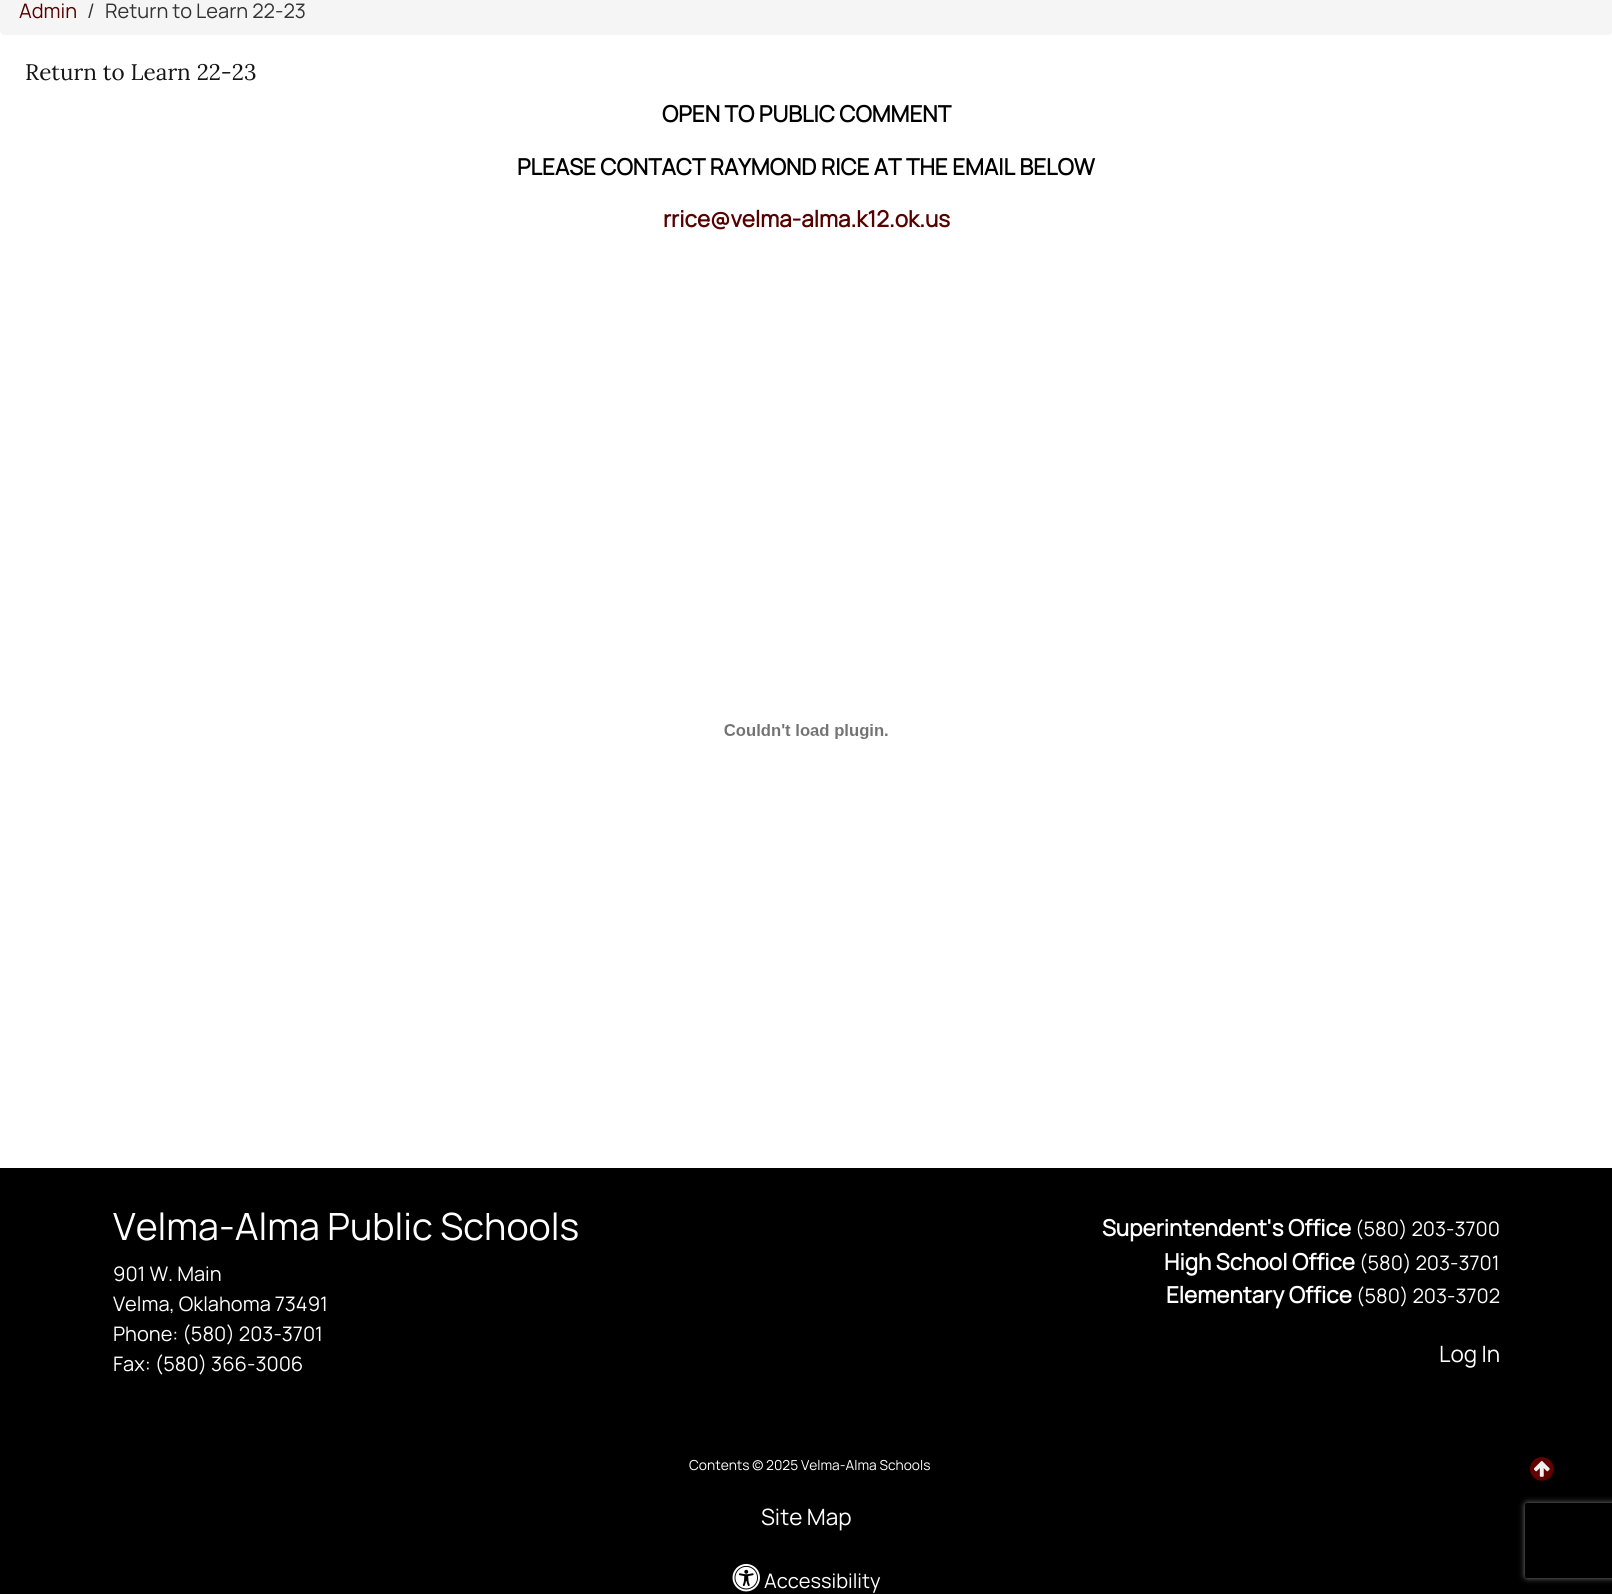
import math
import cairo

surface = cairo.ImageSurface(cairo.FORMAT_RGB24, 1612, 1594)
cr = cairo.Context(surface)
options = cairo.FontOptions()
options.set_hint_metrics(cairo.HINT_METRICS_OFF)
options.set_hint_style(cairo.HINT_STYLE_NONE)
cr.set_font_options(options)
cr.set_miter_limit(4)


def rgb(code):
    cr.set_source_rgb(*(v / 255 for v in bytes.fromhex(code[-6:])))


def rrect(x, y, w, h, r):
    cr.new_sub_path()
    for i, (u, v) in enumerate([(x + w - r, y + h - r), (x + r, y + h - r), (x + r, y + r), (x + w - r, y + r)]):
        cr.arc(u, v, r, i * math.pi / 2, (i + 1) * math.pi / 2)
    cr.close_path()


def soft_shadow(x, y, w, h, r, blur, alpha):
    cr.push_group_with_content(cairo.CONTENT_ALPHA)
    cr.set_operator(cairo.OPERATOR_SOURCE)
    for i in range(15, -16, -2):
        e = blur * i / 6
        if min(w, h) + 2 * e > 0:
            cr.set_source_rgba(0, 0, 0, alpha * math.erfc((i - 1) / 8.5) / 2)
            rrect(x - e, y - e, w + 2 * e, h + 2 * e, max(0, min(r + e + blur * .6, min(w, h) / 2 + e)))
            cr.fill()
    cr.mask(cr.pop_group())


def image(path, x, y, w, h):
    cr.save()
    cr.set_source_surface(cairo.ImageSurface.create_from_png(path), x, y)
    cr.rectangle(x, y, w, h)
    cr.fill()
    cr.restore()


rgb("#ffffff")
cr.paint()
rgb("#f5f5f5")
rrect(0, -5, 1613, 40, 5)
cr.fill()
image("img/1.png", 724, 724, 164, 15)
rgb("#000000")
cr.rectangle(0, 1168, 1612, 426)
cr.fill()
image("img/2.png", 732, 1563, 28, 29)
gradient = cairo.RadialGradient(0, 0, 0, 0, 0, 1)
gradient.set_matrix(cairo.Matrix(1 / 17, 0, 0, 1 / 19, -1 * 1542 / 17, -1 * 1469 / 19))
gradient.add_color_stop_rgba(0.5, 0.941, 0.941, 0.941, 1)
gradient.add_color_stop_rgba(0.5, 0, 0, 0, 1)
cr.set_source(gradient)
cr.rectangle(1534, 1460, 16, 18)
cr.fill()
image("img/3.png", 1530, 1457, 24, 24)
cr.save()
cr.set_fill_rule(cairo.FILL_RULE_EVEN_ODD)
cr.new_path()
cr.move_to(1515, 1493)
cr.line_to(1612, 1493)
cr.line_to(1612, 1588)
cr.line_to(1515, 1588)
cr.close_path()
cr.move_to(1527.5, 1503)
cr.line_to(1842.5, 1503)
cr.curve_to(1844, 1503, 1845, 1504, 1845, 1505.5)
cr.line_to(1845, 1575.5)
cr.curve_to(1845, 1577, 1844, 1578, 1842.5, 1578)
cr.line_to(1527.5, 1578)
cr.curve_to(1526, 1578, 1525, 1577, 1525, 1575.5)
cr.line_to(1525, 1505.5)
cr.curve_to(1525, 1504, 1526, 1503, 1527.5, 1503)
cr.close_path()
cr.clip()
rgb("#808080")
soft_shadow(1525, 1503, 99, 75, 2.5, 3, 1)
cr.restore()
cr.select_font_face("Manrope ExtraLight")
cr.set_font_size(20)
rgb("#570000")
cr.move_to(19, 18)
cr.show_text("Admin")
rgb("#333333")
cr.move_to(87, 18)
cr.show_text("/")
cr.move_to(105, 18)
cr.show_text("Return to Learn 22-23")
cr.select_font_face("Lora")
cr.set_font_size(22.5)
rgb("#151515")
cr.move_to(25, 80)
cr.show_text("Return to Learn 22-23")
cr.select_font_face("Manrope", cairo.FONT_SLANT_NORMAL, cairo.FONT_WEIGHT_BOLD)
rgb("#000000")
cr.move_to(662, 122)
cr.show_text("OPEN TO PUBLIC COMMENT")
cr.move_to(517, 175)
cr.show_text("PLEASE CONTACT RAYMOND RICE AT THE EMAIL BELOW")
rgb("#570000")
cr.move_to(663, 227)
cr.show_text("rrice@velma-alma.k12.ok.us")
cr.select_font_face("Manrope ExtraLight")
cr.set_font_size(37.5)
rgb("#ffffff")
cr.move_to(113, 1240)
cr.show_text("Velma-Alma Public Schools")
cr.set_font_size(20)
for x, y, s in [
    (113, 1281, "901 W. Main"),
    (113, 1311, "Velma, Oklahoma 73491"),
    (113, 1341, "Phone: (580) 203-3701"),
    (113, 1371, "Fax: (580) 366-3006"),
]:
    cr.move_to(x, y)
    cr.show_text(s)
cr.select_font_face("Manrope", cairo.FONT_SLANT_NORMAL, cairo.FONT_WEIGHT_BOLD)
cr.set_font_size(22.5)
cr.move_to(1102, 1236)
cr.show_text("Superintendent's Office")
cr.select_font_face("Manrope ExtraLight")
cr.set_font_size(20)
cr.move_to(1355, 1236)
cr.show_text("(580) 203-3700")
cr.select_font_face("Manrope", cairo.FONT_SLANT_NORMAL, cairo.FONT_WEIGHT_BOLD)
cr.set_font_size(22.5)
cr.move_to(1164, 1270)
cr.show_text("High School Office")
cr.select_font_face("Manrope ExtraLight")
cr.set_font_size(20)
cr.move_to(1359, 1270)
cr.show_text("(580) 203-3701")
cr.select_font_face("Manrope", cairo.FONT_SLANT_NORMAL, cairo.FONT_WEIGHT_BOLD)
cr.set_font_size(22.5)
cr.move_to(1166, 1303)
cr.show_text("Elementary Office")
cr.select_font_face("Manrope ExtraLight")
cr.set_font_size(20)
cr.move_to(1356, 1303)
cr.show_text("(580) 203-3702")
cr.set_font_size(22.5)
cr.move_to(1439, 1362)
cr.show_text("Log In")
cr.set_font_size(13.75)
cr.move_to(689, 1470)
cr.show_text("Contents © 2025 Velma-Alma Schools")
cr.set_font_size(22.5)
cr.move_to(761, 1525)
cr.show_text("Site Map")
cr.set_font_size(20)
cr.move_to(764, 1588)
cr.show_text("Accessibility")
surface.write_to_png("page.png")
